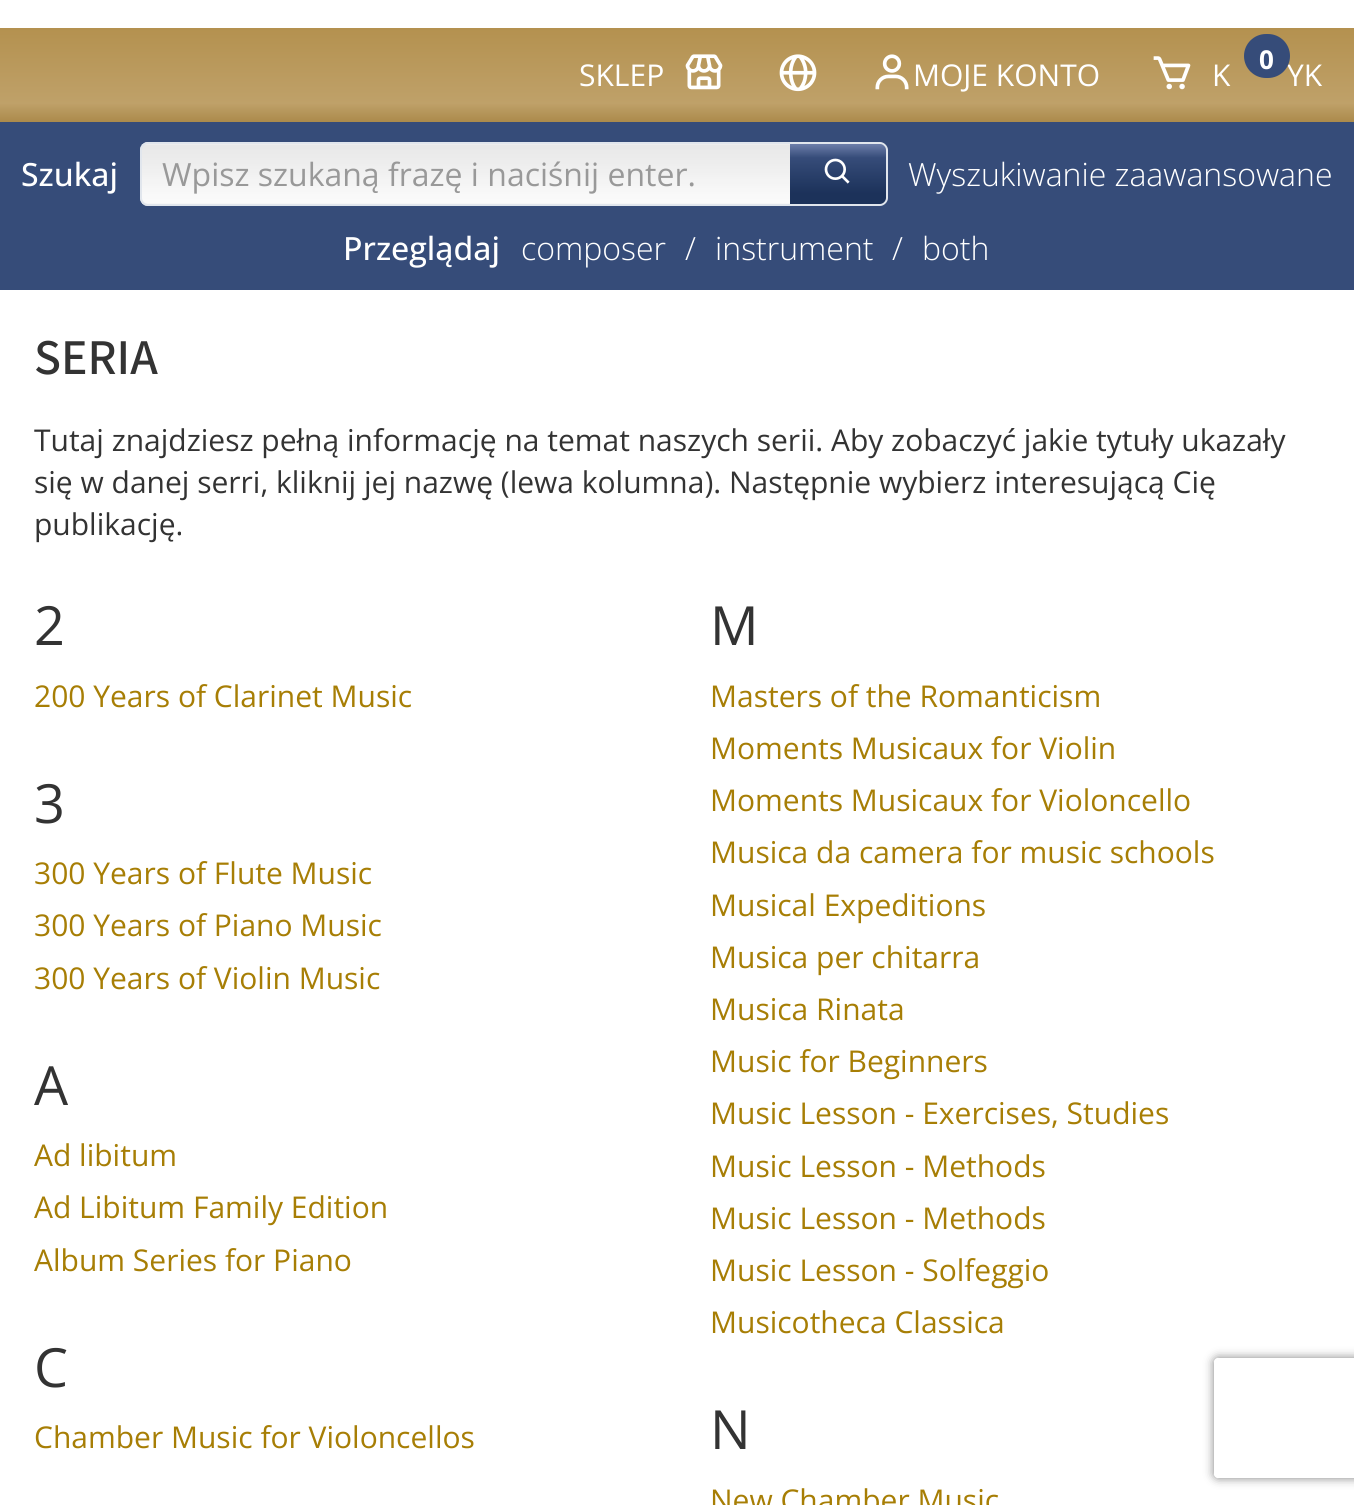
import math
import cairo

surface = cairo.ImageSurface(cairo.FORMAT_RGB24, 1354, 1505)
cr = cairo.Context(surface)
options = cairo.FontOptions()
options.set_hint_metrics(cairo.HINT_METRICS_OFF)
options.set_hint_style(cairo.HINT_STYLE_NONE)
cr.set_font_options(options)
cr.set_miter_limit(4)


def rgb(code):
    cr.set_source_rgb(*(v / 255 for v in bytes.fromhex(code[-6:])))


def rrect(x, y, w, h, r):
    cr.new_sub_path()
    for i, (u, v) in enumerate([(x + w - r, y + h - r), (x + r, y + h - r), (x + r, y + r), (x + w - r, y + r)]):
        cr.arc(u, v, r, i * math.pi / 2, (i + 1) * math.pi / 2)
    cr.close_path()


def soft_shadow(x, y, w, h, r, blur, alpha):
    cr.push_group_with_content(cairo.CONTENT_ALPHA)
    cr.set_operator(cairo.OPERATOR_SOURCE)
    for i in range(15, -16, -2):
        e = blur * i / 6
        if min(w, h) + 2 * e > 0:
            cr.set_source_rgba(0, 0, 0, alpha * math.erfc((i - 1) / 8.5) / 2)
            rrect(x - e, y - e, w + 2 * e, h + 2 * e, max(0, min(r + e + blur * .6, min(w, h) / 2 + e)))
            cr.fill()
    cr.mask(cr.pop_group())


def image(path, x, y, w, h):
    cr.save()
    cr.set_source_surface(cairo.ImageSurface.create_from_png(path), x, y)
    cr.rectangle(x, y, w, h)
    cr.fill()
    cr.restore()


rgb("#ffffff")
cr.paint()
gradient = cairo.LinearGradient(677, 28, 677, 122)
gradient.add_color_stop_rgba(0, 0.706, 0.569, 0.31, 1)
gradient.add_color_stop_rgba(0.8, 0.749, 0.631, 0.412, 1)
gradient.add_color_stop_rgba(1, 0.671, 0.541, 0.294, 1)
cr.set_source(gradient)
cr.rectangle(0, 28, 1354, 94)
cr.fill()
image("img/1.png", 685, 54, 38, 36)
image("img/2.png", 779, 54, 38, 38)
image("img/3.png", 875, 54, 34, 36)
image("img/4.png", 1153, 56, 38, 34)
rgb("#364c79")
cr.rectangle(0, 122, 1354, 168)
cr.fill()
image("img/5.png", 140, 142, 650, 64)
rgb("#e1e6ed")
cr.set_fill_rule(cairo.FILL_RULE_EVEN_ODD)
cr.new_path()
cr.move_to(148, 142)
cr.line_to(792, 142)
cr.line_to(792, 206)
cr.line_to(148, 206)
cr.curve_to(144, 206, 140, 202, 140, 198)
cr.line_to(140, 150)
cr.curve_to(140, 146, 144, 142, 148, 142)
cr.close_path()
cr.move_to(148, 144)
cr.line_to(792, 144)
cr.line_to(792, 204)
cr.line_to(148, 204)
cr.curve_to(145, 204, 142, 201, 142, 198)
cr.line_to(142, 150)
cr.curve_to(142, 147, 145, 144, 148, 144)
cr.close_path()
cr.fill()
gradient = cairo.LinearGradient(838, 144, 838, 204)
gradient.add_color_stop_rgba(0, 0.427, 0.494, 0.667, 1)
gradient.add_color_stop_rgba(0.23, 0.212, 0.298, 0.475, 1)
gradient.add_color_stop_rgba(0.82, 0.11, 0.196, 0.353, 1)
cr.set_source(gradient)
cr.new_path()
cr.move_to(790, 144)
cr.line_to(880, 144)
cr.curve_to(883.5, 144, 886, 146.5, 886, 150)
cr.line_to(886, 198)
cr.curve_to(886, 201.5, 883.5, 204, 880, 204)
cr.line_to(790, 204)
cr.close_path()
cr.fill()
rgb("#e1e6ed")
cr.new_path()
cr.move_to(790, 142)
cr.line_to(880, 142)
cr.curve_to(884, 142, 888, 146, 888, 150)
cr.line_to(888, 198)
cr.curve_to(888, 202, 884, 206, 880, 206)
cr.line_to(790, 206)
cr.close_path()
cr.move_to(790, 144)
cr.line_to(880, 144)
cr.curve_to(883, 144, 886, 147, 886, 150)
cr.line_to(886, 198)
cr.curve_to(886, 201, 883, 204, 880, 204)
cr.line_to(790, 204)
cr.close_path()
cr.fill()
image("img/6.png", 824, 158, 26, 26)
cr.save()
cr.new_path()
cr.move_to(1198, 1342)
cr.line_to(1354, 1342)
cr.line_to(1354, 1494)
cr.line_to(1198, 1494)
cr.close_path()
cr.move_to(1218, 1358)
cr.line_to(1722, 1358)
cr.curve_to(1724, 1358, 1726, 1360, 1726, 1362)
cr.line_to(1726, 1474)
cr.curve_to(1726, 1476, 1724, 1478, 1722, 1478)
cr.line_to(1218, 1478)
cr.curve_to(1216, 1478, 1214, 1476, 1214, 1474)
cr.line_to(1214, 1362)
cr.curve_to(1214, 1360, 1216, 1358, 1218, 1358)
cr.close_path()
cr.clip()
rgb("#808080")
soft_shadow(1214, 1358, 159, 120, 4, 5, 1)
cr.restore()
cr.select_font_face("Open Sans")
cr.set_font_size(30)
rgb("#ffffff")
for x, y, s in [
    (579, 86, "SKLEP"),
    (913, 86, "MOJE KONTO"),
    (1212, 86, "K"),
    (1287, 86, "YK"),
]:
    cr.move_to(x, y)
    cr.show_text(s)
rgb("#364c79")
rrect(1244, 34, 46, 44, 22)
cr.fill()
cr.select_font_face("Open Sans", cairo.FONT_SLANT_NORMAL, cairo.FONT_WEIGHT_BOLD)
cr.set_font_size(26)
rgb("#ffffff")
cr.move_to(1259, 69)
cr.show_text("0")
cr.select_font_face("Open Sans Medium")
cr.set_font_size(32)
cr.move_to(21, 186)
cr.show_text("Szukaj")
cr.select_font_face("Open Sans")
rgb("#999999")
cr.move_to(162, 186)
cr.show_text("Wpisz szukaną frazę i naciśnij enter.")
cr.select_font_face("Open Sans Light")
rgb("#ffffff")
cr.move_to(908, 186)
cr.show_text("Wyszukiwanie zaawansowane")
cr.select_font_face("Open Sans Medium")
cr.move_to(343, 260)
cr.show_text("Przeglądaj")
cr.select_font_face("Open Sans Light")
for x, y, s in [
    (521, 260, "composer"),
    (685, 260, "/"),
    (715, 260, "instrument"),
    (892, 260, "/"),
    (922, 260, "both"),
]:
    cr.move_to(x, y)
    cr.show_text(s)
cr.select_font_face("Source Sans 3 Medium")
cr.set_font_size(50)
rgb("#333333")
cr.move_to(34, 374)
cr.show_text("SERIA")
cr.select_font_face("Open Sans")
cr.set_font_size(30)
for x, y, s in [
    (34, 451, "Tutaj znajdziesz pełną informację na temat naszych serii. Aby zobaczyć jakie tytuły ukazały"),
    (34, 493, "się w danej serri, kliknij jej nazwę (lewa kolumna). Następnie wybierz interesującą Cię"),
    (34, 535, "publikację."),
]:
    cr.move_to(x, y)
    cr.show_text(s)
cr.set_font_size(54)
cr.move_to(34, 645)
cr.show_text("2")
cr.set_font_size(30)
rgb("#a77e05")
cr.move_to(34, 707)
cr.show_text("200 Years of Clarinet Music")
cr.set_font_size(54)
rgb("#333333")
cr.move_to(710, 645)
cr.show_text("M")
cr.set_font_size(30)
rgb("#a77e05")
for x, y, s in [
    (710, 707, "Masters of the Romanticism"),
    (710, 759, "Moments Musicaux for Violin"),
    (710, 811, "Moments Musicaux for Violoncello"),
    (710, 863, "Musica da camera for music schools"),
    (710, 916, "Musical Expeditions"),
    (710, 968, "Musica per chitarra"),
    (710, 1020, "Musica Rinata"),
    (710, 1072, "Music for Beginners"),
    (710, 1124, "Music Lesson - Exercises, Studies"),
    (710, 1177, "Music Lesson - Methods"),
    (710, 1229, "Music Lesson - Methods"),
    (710, 1281, "Music Lesson - Solfeggio"),
    (710, 1333, "Musicotheca Classica"),
]:
    cr.move_to(x, y)
    cr.show_text(s)
cr.set_font_size(54)
rgb("#333333")
cr.move_to(34, 823)
cr.show_text("3")
cr.set_font_size(30)
rgb("#a77e05")
for x, y, s in [
    (34, 884, "300 Years of Flute Music"),
    (34, 936, "300 Years of Piano Music"),
    (34, 989, "300 Years of Violin Music"),
]:
    cr.move_to(x, y)
    cr.show_text(s)
cr.set_font_size(54)
rgb("#333333")
cr.move_to(34, 1105)
cr.show_text("A")
cr.set_font_size(30)
rgb("#a77e05")
for x, y, s in [
    (34, 1166, "Ad libitum"),
    (34, 1218, "Ad Libitum Family Edition"),
    (34, 1271, "Album Series for Piano"),
]:
    cr.move_to(x, y)
    cr.show_text(s)
cr.set_font_size(54)
rgb("#333333")
cr.move_to(34, 1387)
cr.show_text("C")
cr.set_font_size(30)
rgb("#a77e05")
cr.move_to(34, 1448)
cr.show_text("Chamber Music for Violoncellos")
cr.set_font_size(54)
rgb("#333333")
cr.move_to(710, 1449)
cr.show_text("N")
cr.set_font_size(30)
rgb("#a77e05")
cr.move_to(710, 1511)
cr.show_text("New Chamber Music")
surface.write_to_png("page.png")
